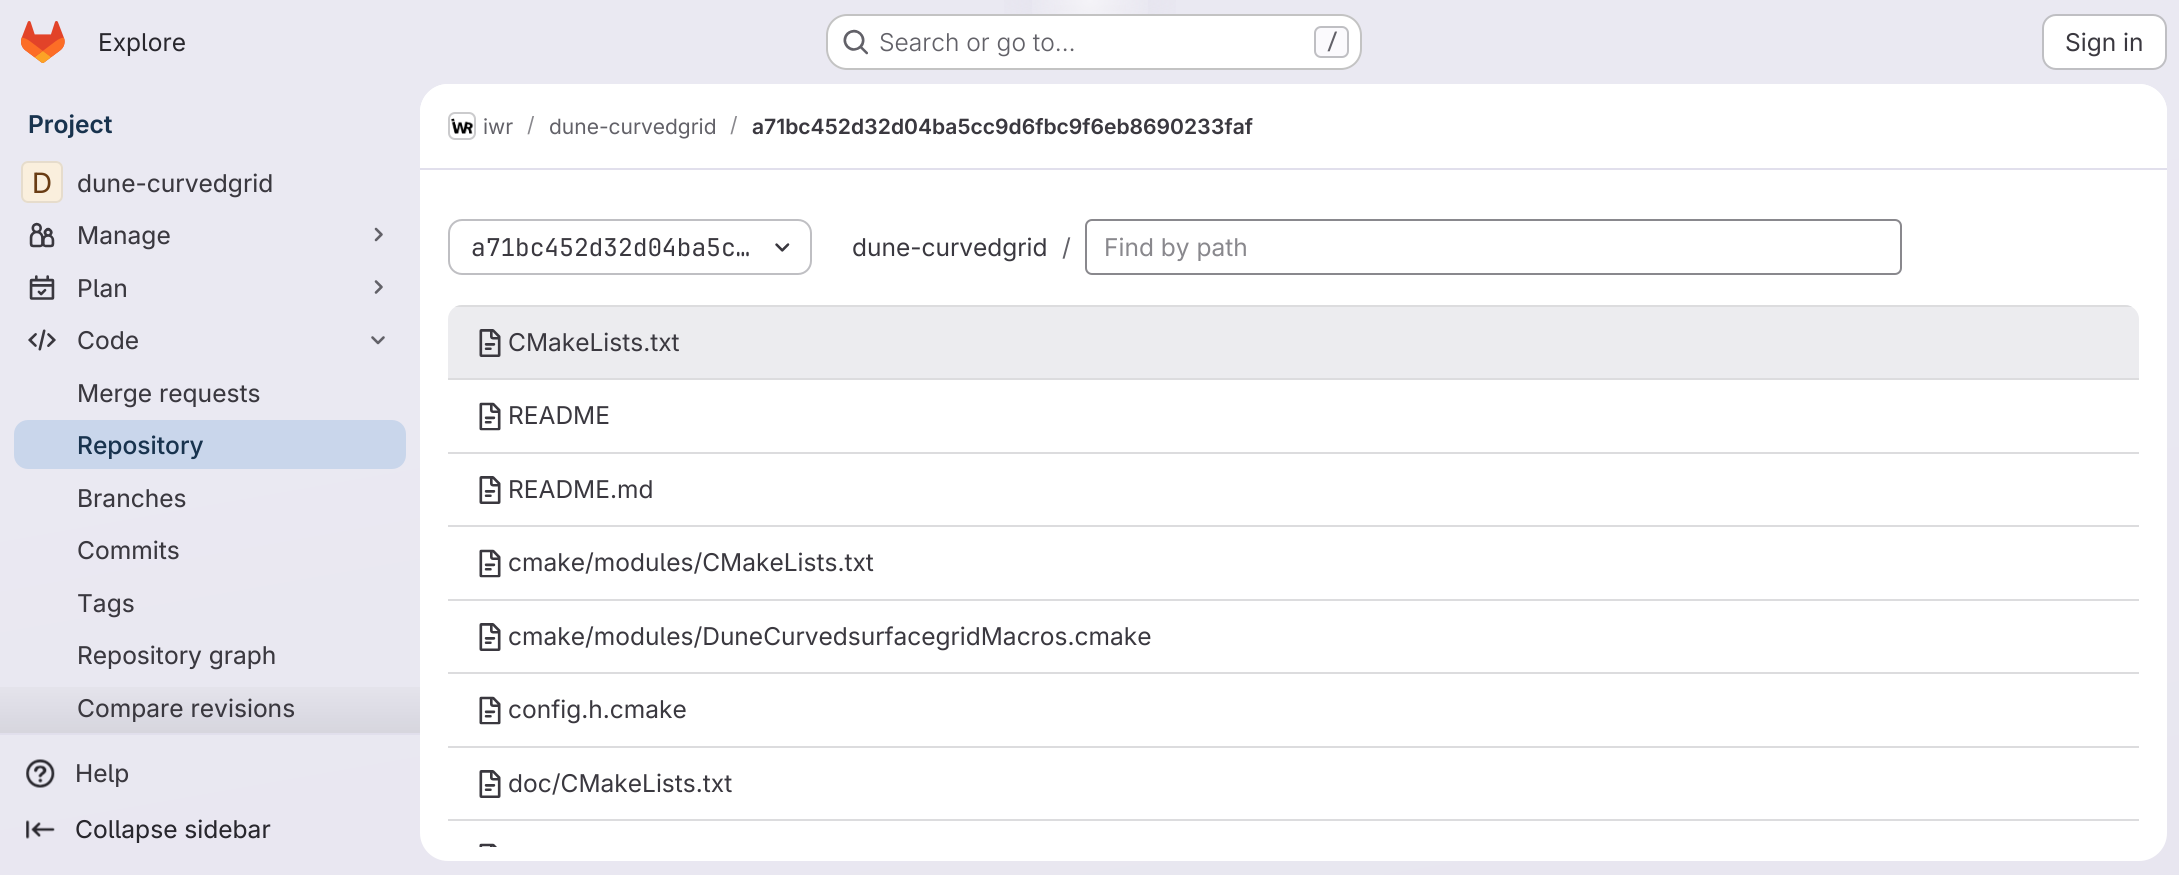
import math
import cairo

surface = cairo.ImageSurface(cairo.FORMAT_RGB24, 2179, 875)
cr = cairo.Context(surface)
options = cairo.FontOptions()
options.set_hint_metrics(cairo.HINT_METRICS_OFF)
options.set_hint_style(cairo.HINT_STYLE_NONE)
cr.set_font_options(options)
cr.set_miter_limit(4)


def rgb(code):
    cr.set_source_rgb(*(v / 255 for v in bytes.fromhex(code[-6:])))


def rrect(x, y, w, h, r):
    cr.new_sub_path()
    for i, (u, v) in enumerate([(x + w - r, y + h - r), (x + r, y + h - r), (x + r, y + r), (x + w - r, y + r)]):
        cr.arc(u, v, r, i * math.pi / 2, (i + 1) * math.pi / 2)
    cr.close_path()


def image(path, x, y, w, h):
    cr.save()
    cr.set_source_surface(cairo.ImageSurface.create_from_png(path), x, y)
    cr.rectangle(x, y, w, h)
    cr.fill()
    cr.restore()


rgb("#ffffff")
cr.paint()
gradient = cairo.LinearGradient(1198, 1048, 983, -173)
gradient.add_color_stop_rgba(0, 0.91, 0.902, 0.941, 1)
gradient.add_color_stop_rgba(0.7, 0.918, 0.914, 0.949, 1)
cr.set_source(gradient)
cr.rectangle(0, 0, 2179, 875)
cr.fill()
gradient = cairo.RadialGradient(0, 0, 0, 0, 0, 1)
gradient.set_matrix(cairo.Matrix(1 / 1090, 0, 0, 1 / 875, -1 * 1090 / 1090, -1 * 0 / 875))
gradient.add_color_stop_rgba(0, 0.894, 0.886, 0.929, 1)
gradient.add_color_stop_rgba(0.11, 0.894, 0.886, 0.929, 0)
cr.set_source(gradient)
cr.rectangle(1004, 0, 172, 69)
cr.fill()
gradient = cairo.RadialGradient(0, 0, 0, 0, 0, 1)
gradient.set_matrix(cairo.Matrix(1 / 1090, 0, 0, 1 / 875, -1 * 1090 / 1090, -1 * 0 / 875))
gradient.add_color_stop_rgba(0, 0.894, 0.886, 0.925, 1)
gradient.add_color_stop_rgba(0.08, 0.894, 0.886, 0.925, 0)
cr.set_source(gradient)
cr.rectangle(1054, 5, 72, 6)
cr.fill()
gradient = cairo.RadialGradient(1090, 0, 0, 1090, 0, 1398)
gradient.add_color_stop_rgba(0, 1, 1, 1, 0.6)
gradient.add_color_stop_rgba(0.05, 1, 1, 1, 0)
cr.set_source(gradient)
cr.rectangle(1032, 0, 116, 14)
cr.fill()
image("img/1.png", 21, 21, 44, 42)
rgb("#ffffff")
rrect(826, 14, 536, 56, 21)
cr.fill()
rrect(827, 15, 534, 54, 20)
cr.set_source_rgba(0.02, 0.02, 0.024, 0.24)
cr.stroke()
image("img/2.png", 843, 29, 25, 26)
rgb("#fbfafd")
rrect(1315, 27, 33, 30, 6)
cr.fill_preserve()
rgb("#bfbfc3")
cr.stroke()
rgb("#ffffff")
rrect(2043, 15, 123, 54, 13)
cr.fill_preserve()
rgb("#bfbfc3")
cr.stroke()
rgb("#e1dfec")
cr.rectangle(0, 733, 420, 2)
cr.fill()
rgb("#ffffff")
rrect(21, 161, 42, 42, 7)
cr.fill()
cr.set_source_rgba(0.914, 0.745, 0.455, 0.24)
rrect(21, 161, 42, 42, 7)
cr.fill()
rrect(22, 162, 40, 40, 6)
cr.set_source_rgba(0.02, 0.02, 0.024, 0.08)
cr.stroke()
image("img/3.png", 29, 222, 26, 26)
cr.new_path()
cr.move_to(376, 229)
cr.line_to(381.5, 234.5)
cr.line_to(376, 240)
rgb("#626168")
cr.set_line_width(2.6)
cr.set_line_cap(cairo.LINE_CAP_ROUND)
cr.set_line_join(cairo.LINE_JOIN_ROUND)
cr.stroke()
image("img/4.png", 29, 275, 26, 25)
cr.new_path()
cr.move_to(376, 281.5)
cr.line_to(381.5, 287)
cr.line_to(376, 292.5)
cr.stroke()
image("img/5.png", 28, 329, 28, 22)
cr.new_path()
cr.move_to(383.5, 337.5)
cr.line_to(378, 343)
cr.line_to(372.5, 337.5)
cr.stroke()
rgb("#c9d6eb")
rrect(14, 420, 392, 49, 14)
cr.fill()
gradient = cairo.LinearGradient(210, 670, 210, 733)
gradient.add_color_stop_rgba(0, 0.02, 0.02, 0.024, 0)
gradient.add_color_stop_rgba(1, 0.02, 0.02, 0.024, 0.08)
cr.set_source(gradient)
cr.rectangle(0, 687, 420, 46)
cr.fill()
image("img/6.png", 26, 759, 29, 29)
image("img/7.png", 26, 820, 29, 19)
rgb("#ffffff")
rrect(420, 84, 1747, 777, 28)
cr.fill()
cr.new_path()
cr.move_to(448, 84)
cr.line_to(2139, 84)
cr.curve_to(2154.5, 84, 2167, 96.5, 2167, 112)
cr.line_to(2167, 170)
cr.line_to(420, 170)
cr.line_to(420, 112)
cr.curve_to(420, 96.5, 432.5, 84, 448, 84)
cr.close_path()
cr.fill()
rgb("#e1dfec")
cr.rectangle(420, 168, 1747, 2)
cr.fill()
rrect(449, 113, 26, 26, 6)
rgb("#dcdcde")
cr.set_line_width(2)
cr.set_line_cap(cairo.LINE_CAP_BUTT)
cr.set_line_join(cairo.LINE_JOIN_MITER)
cr.stroke()
image("img/8.png", 450, 118, 24, 16)
rrect(449, 113, 26, 26, 6)
cr.set_source_rgba(0.02, 0.02, 0.024, 0.08)
cr.stroke()
rrect(449, 220, 362, 54, 13)
rgb("#bfbfc3")
cr.stroke()
image("img/9.png", 775, 243, 15, 9)
rrect(1086, 220, 815, 54, 6)
rgb("#89888d")
cr.stroke()
rgb("#ececef")
cr.new_path()
cr.move_to(462, 305)
cr.line_to(2125, 305)
cr.curve_to(2132.5, 305, 2139, 311.5, 2139, 319)
cr.line_to(2139, 378)
cr.line_to(448, 378)
cr.line_to(448, 319)
cr.curve_to(448, 311.5, 454.5, 305, 462, 305)
cr.close_path()
cr.fill()
cr.save()
rrect(448, 305, 1691, 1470, 14)
cr.clip()
rgb("#dcdcde")
cr.rectangle(448, 305, 1691, 2)
cr.fill()
cr.restore()
image("img/10.png", 479, 329, 22, 28)
rgb("#dcdcde")
cr.rectangle(448, 378, 1691, 2)
cr.fill()
image("img/11.png", 479, 402, 22, 29)
cr.rectangle(448, 452, 1691, 2)
cr.fill()
image("img/12.png", 479, 476, 22, 28)
cr.rectangle(448, 525, 1691, 2)
cr.fill()
image("img/11.png", 479, 549, 22, 29)
cr.rectangle(448, 599, 1691, 2)
cr.fill()
image("img/13.png", 479, 623, 22, 28)
cr.rectangle(448, 672, 1691, 2)
cr.fill()
image("img/11.png", 479, 696, 22, 29)
cr.rectangle(448, 746, 1691, 2)
cr.fill()
image("img/13.png", 479, 770, 22, 28)
cr.rectangle(448, 819, 1691, 2)
cr.fill()
image("img/14.png", 479, 843, 18, 4)
cr.select_font_face("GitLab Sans")
cr.set_font_size(24.5)
rgb("#28272d")
cr.move_to(98, 51)
cr.show_text("Explore")
cr.select_font_face("GitLab Sans Light")
rgb("#626168")
cr.move_to(879, 51)
cr.show_text("Search or go to…")
cr.select_font_face("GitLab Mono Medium")
cr.set_font_size(21)
cr.move_to(1326, 49)
cr.show_text("/")
cr.select_font_face("GitLab Sans")
cr.set_font_size(24.5)
rgb("#3a383f")
cr.move_to(2065, 51)
cr.show_text("Sign in")
cr.select_font_face("GitLab Sans SemiBold")
rgb("#18334e")
cr.move_to(28, 133)
cr.show_text("Project")
cr.select_font_face("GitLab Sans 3")
cr.set_font_size(28)
rgb("#693c14")
cr.move_to(32, 193)
cr.show_text("D")
cr.select_font_face("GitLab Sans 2")
cr.set_font_size(24.5)
rgb("#3a383f")
for x, y, s in [
    (77, 192, "dune-curvedgrid"),
    (77, 244, "Manage"),
    (77, 297, "Plan"),
    (77, 349, "Code"),
    (77, 402, "Merge requests"),
]:
    cr.move_to(x, y)
    cr.show_text(s)
cr.select_font_face("GitLab Sans Medium")
rgb("#18334e")
cr.move_to(77, 454)
cr.show_text("Repository")
cr.select_font_face("GitLab Sans 2")
rgb("#3a383f")
for x, y, s in [
    (77, 507, "Branches"),
    (77, 559, "Commits"),
    (77, 612, "Tags"),
    (77, 664, "Repository graph"),
    (77, 717, "Compare revisions"),
    (75, 782, "Help"),
]:
    cr.move_to(x, y)
    cr.show_text(s)
rgb("#28272d")
cr.move_to(75, 838)
cr.show_text("Collapse sidebar")
cr.select_font_face("GitLab Sans")
cr.set_font_size(21)
rgb("#626168")
cr.move_to(483, 134)
cr.show_text("iwr")
rgb("#89888d")
cr.move_to(527, 132)
cr.show_text("/")
rgb("#626168")
cr.move_to(549, 134)
cr.show_text("dune-curvedgrid")
rgb("#89888d")
cr.move_to(730, 132)
cr.show_text("/")
cr.select_font_face("GitLab Sans SemiBold")
rgb("#3a383f")
cr.move_to(752, 134)
cr.show_text("a71bc452d32d04ba5cc9d6fbc9f6eb8690233faf")
cr.select_font_face("GitLab Mono")
cr.set_font_size(24.5)
cr.move_to(471, 256)
cr.show_text("a71bc452d32d04ba5c…")
cr.select_font_face("GitLab Sans")
cr.move_to(852, 256)
cr.show_text("dune-curvedgrid")
rgb("#626168")
cr.move_to(1062, 256)
cr.show_text("/")
rgb("#89888d")
cr.move_to(1104, 256)
cr.show_text("Find by path")
rgb("#3a383f")
for x, y, s in [
    (508, 351, "CMakeLists.txt"),
    (508, 424, "README"),
    (508, 498, "README.md"),
    (508, 571, "cmake/modules/CMakeLists.txt"),
    (508, 645, "cmake/modules/DuneCurvedsurfacegridMacros.cmake"),
    (508, 718, "config.h.cmake"),
    (508, 792, "doc/CMakeLists.txt"),
]:
    cr.move_to(x, y)
    cr.show_text(s)
surface.write_to_png("page.png")
